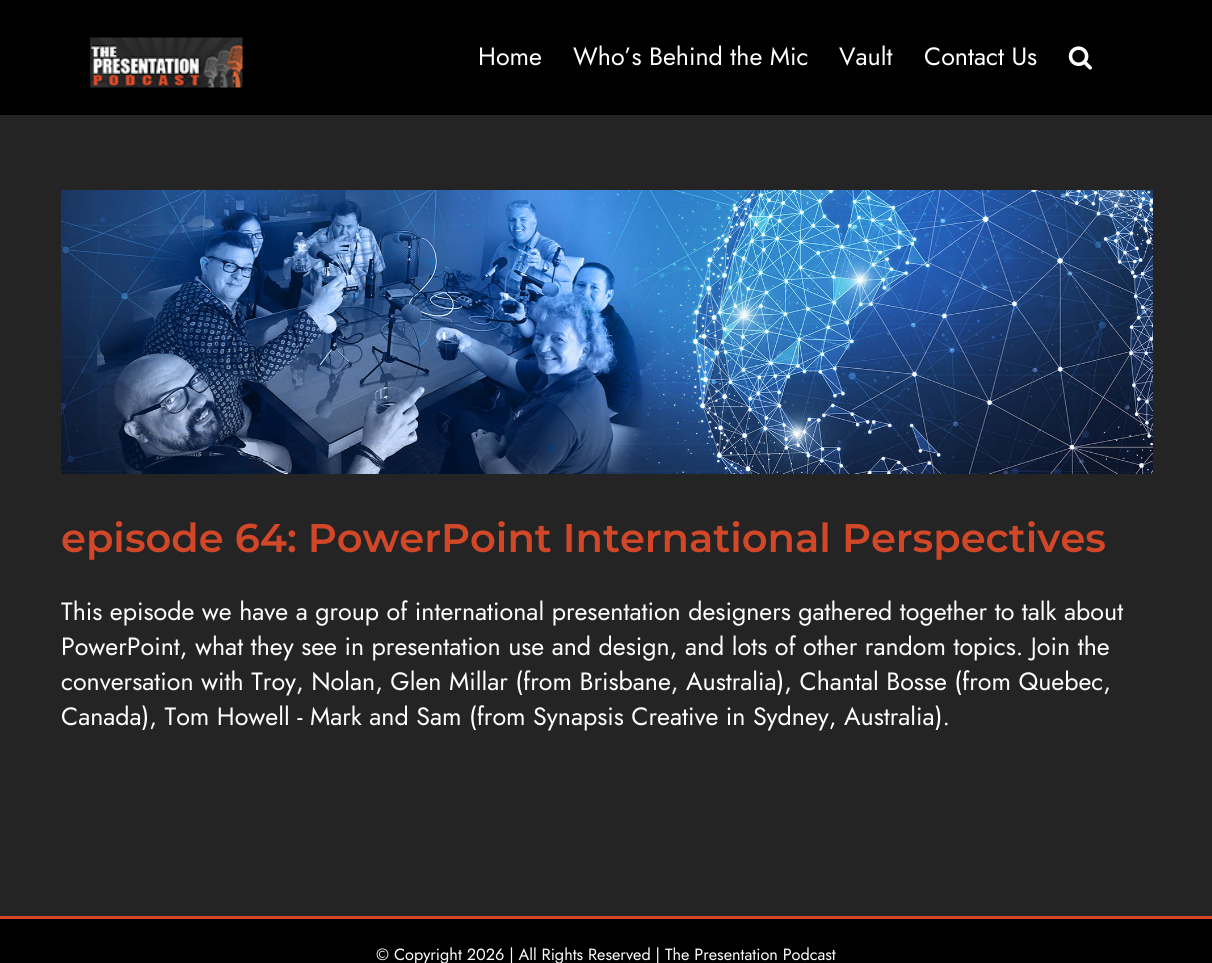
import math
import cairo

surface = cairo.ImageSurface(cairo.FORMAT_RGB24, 1212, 963)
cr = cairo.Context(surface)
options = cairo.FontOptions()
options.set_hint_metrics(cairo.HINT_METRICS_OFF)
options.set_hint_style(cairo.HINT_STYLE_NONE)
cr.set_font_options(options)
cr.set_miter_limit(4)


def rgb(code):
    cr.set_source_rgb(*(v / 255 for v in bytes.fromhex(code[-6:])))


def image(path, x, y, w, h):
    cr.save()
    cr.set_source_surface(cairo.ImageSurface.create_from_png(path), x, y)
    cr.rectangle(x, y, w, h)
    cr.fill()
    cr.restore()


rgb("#242424")
cr.paint()
rgb("#000000")
cr.rectangle(0, 0, 1212, 115)
cr.fill()
image("img/1.png", 90, 37, 153, 51)
image("img/2.png", 1068, 46, 24, 24)
image("img/3.png", 61, 190, 1092, 284)
cr.rectangle(0, 919, 1212, 44)
cr.fill()
rgb("#d24727")
cr.rectangle(0, 916, 1212, 3)
cr.fill()
cr.select_font_face("Jost")
cr.set_font_size(25)
rgb("#ffffff")
for x, y, s in [
    (478, 65, "Home"),
    (573, 65, "Who’s Behind the Mic"),
    (839, 65, "Vault"),
    (924, 65, "Contact Us"),
]:
    cr.move_to(x, y)
    cr.show_text(s)
cr.select_font_face("Montserrat SemiBold")
cr.set_font_size(40)
rgb("#d24727")
cr.move_to(61, 552)
cr.show_text("episode 64: PowerPoint International Perspectives")
cr.select_font_face("Jost")
cr.set_font_size(25)
rgb("#ffffff")
for x, y, s in [
    (61, 620, "This episode we have a group of international presentation designers gathered together to talk about"),
    (61, 655, "PowerPoint, what they see in presentation use and design, and lots of other random topics. Join the"),
    (61, 690, "conversation with Troy, Nolan, Glen Millar (from Brisbane, Australia), Chantal Bosse (from Quebec,"),
    (61, 725, "Canada), Tom Howell - Mark and Sam (from Synapsis Creative in Sydney, Australia)."),
]:
    cr.move_to(x, y)
    cr.show_text(s)
cr.set_font_size(16.25)
cr.move_to(376, 960)
cr.show_text("© Copyright 2026 | All Rights Reserved | The Presentation Podcast")
surface.write_to_png("page.png")
